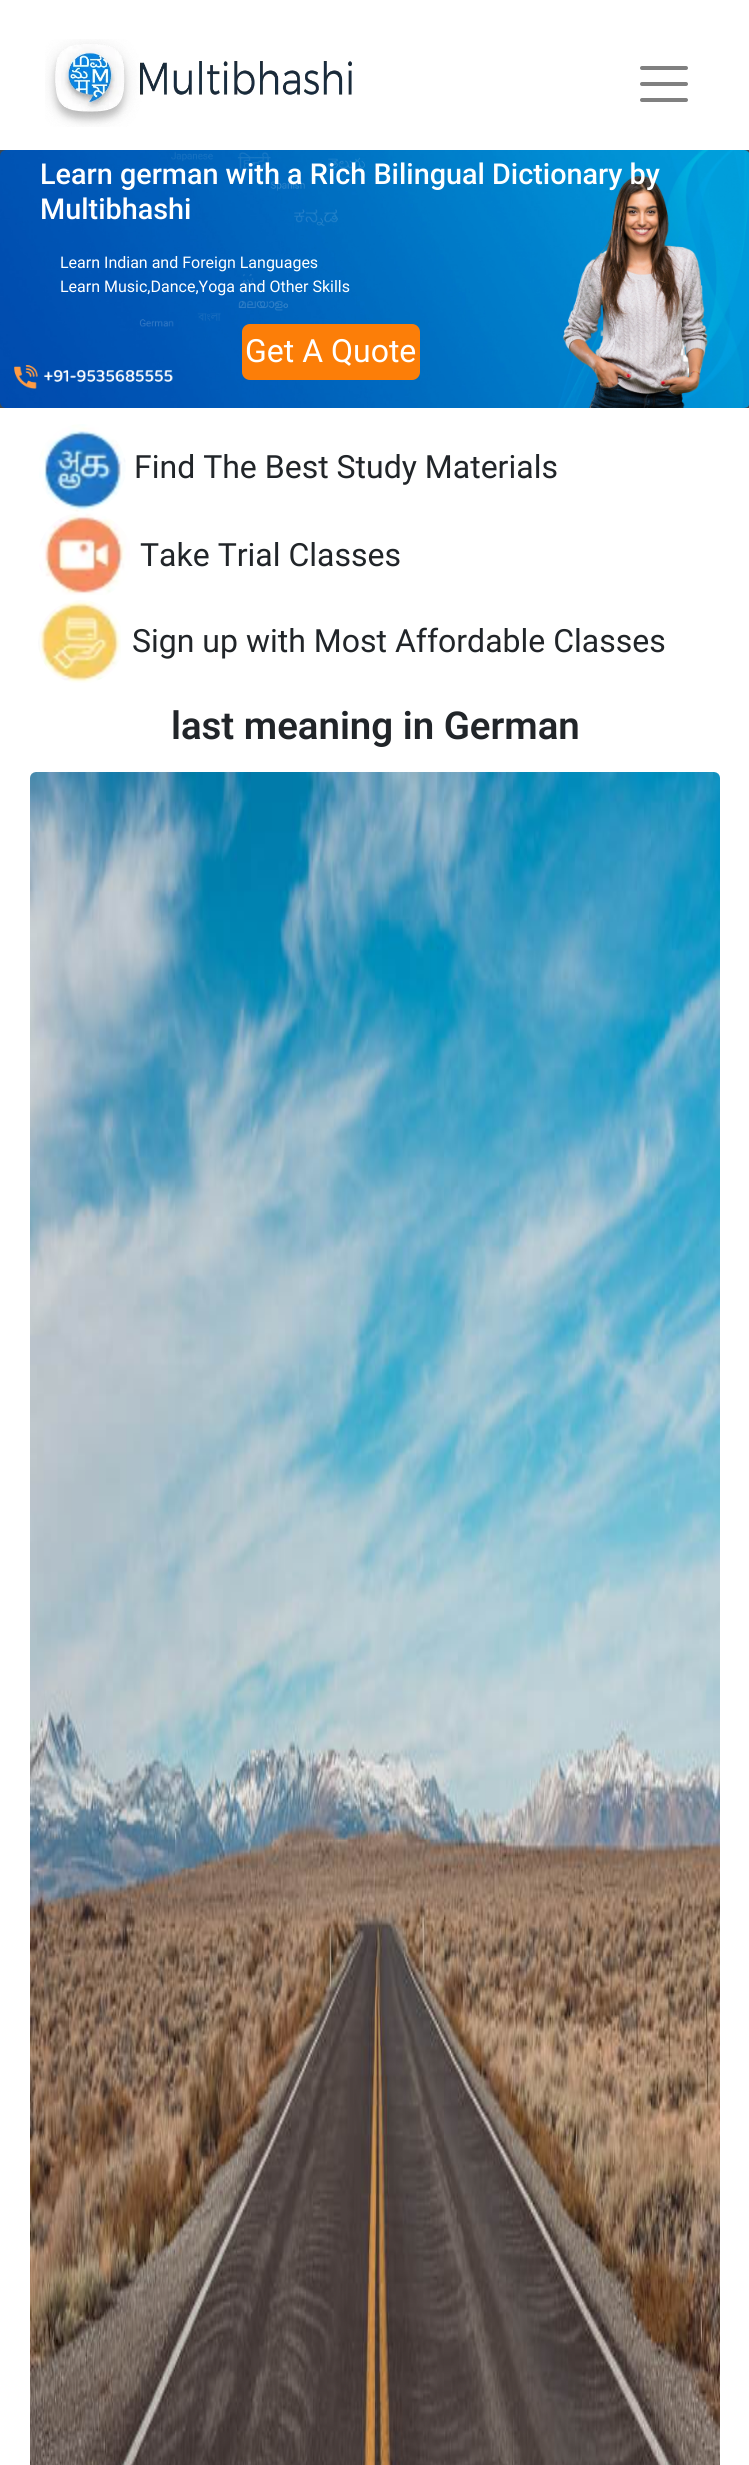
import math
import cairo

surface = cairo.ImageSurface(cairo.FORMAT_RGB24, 749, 2465)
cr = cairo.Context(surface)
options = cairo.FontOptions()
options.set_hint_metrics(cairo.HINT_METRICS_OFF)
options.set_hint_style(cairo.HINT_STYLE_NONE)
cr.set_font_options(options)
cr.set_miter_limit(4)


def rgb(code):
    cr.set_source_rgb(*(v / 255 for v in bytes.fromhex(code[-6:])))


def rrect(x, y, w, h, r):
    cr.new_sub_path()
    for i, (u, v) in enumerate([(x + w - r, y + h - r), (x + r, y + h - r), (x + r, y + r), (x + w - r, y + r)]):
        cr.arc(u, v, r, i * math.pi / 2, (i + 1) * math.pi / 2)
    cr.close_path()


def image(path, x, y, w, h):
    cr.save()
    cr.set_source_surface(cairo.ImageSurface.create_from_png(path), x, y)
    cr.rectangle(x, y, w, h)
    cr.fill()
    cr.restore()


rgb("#ffffff")
cr.paint()
image("img/1.png", 45, 39, 307, 88)
cr.new_path()
cr.move_to(642, 68)
cr.line_to(686, 68)
cr.move_to(642, 84)
cr.line_to(686, 84)
cr.move_to(642, 100)
cr.line_to(686, 100)
rgb("#808080")
cr.set_line_width(4)
cr.set_line_cap(cairo.LINE_CAP_ROUND)
cr.stroke()
rgb("#3c4852")
cr.rectangle(0, 150, 749, 258)
cr.fill()
image("img/2.png", 0, 150, 749, 258)
rgb("#fc7e08")
rrect(242, 324, 178, 56, 8)
cr.fill()
image("img/3.png", 39, 424, 87, 88)
image("img/4.png", 39, 512, 91, 83)
image("img/5.png", 38, 600, 83, 83)
image("img/6.png", 30, 772, 690, 1693)
cr.select_font_face("Roboto Medium")
cr.set_font_size(28.8)
rgb("#ffffff")
cr.move_to(40, 184)
cr.show_text("Learn german with a Rich Bilingual Dictionary by")
cr.move_to(40, 219)
cr.show_text("Multibhashi")
cr.select_font_face("Roboto")
cr.set_font_size(16)
cr.move_to(60, 268)
cr.show_text("Learn Indian and Foreign Languages")
cr.move_to(60, 292)
cr.show_text("Learn Music,Dance,Yoga and Other Skills")
cr.set_font_size(32)
cr.move_to(245, 362)
cr.show_text("Get A Quote")
rgb("#212529")
for x, y, s in [
    (134, 478, "Find The Best Study Materials"),
    (140, 566, "Take Trial Classes"),
    (132, 652, "Sign up with Most Affordable Classes"),
]:
    cr.move_to(x, y)
    cr.show_text(s)
cr.select_font_face("Roboto SemiBold")
cr.set_font_size(38.4)
cr.move_to(171, 739)
cr.show_text("last meaning in German")
surface.write_to_png("page.png")
